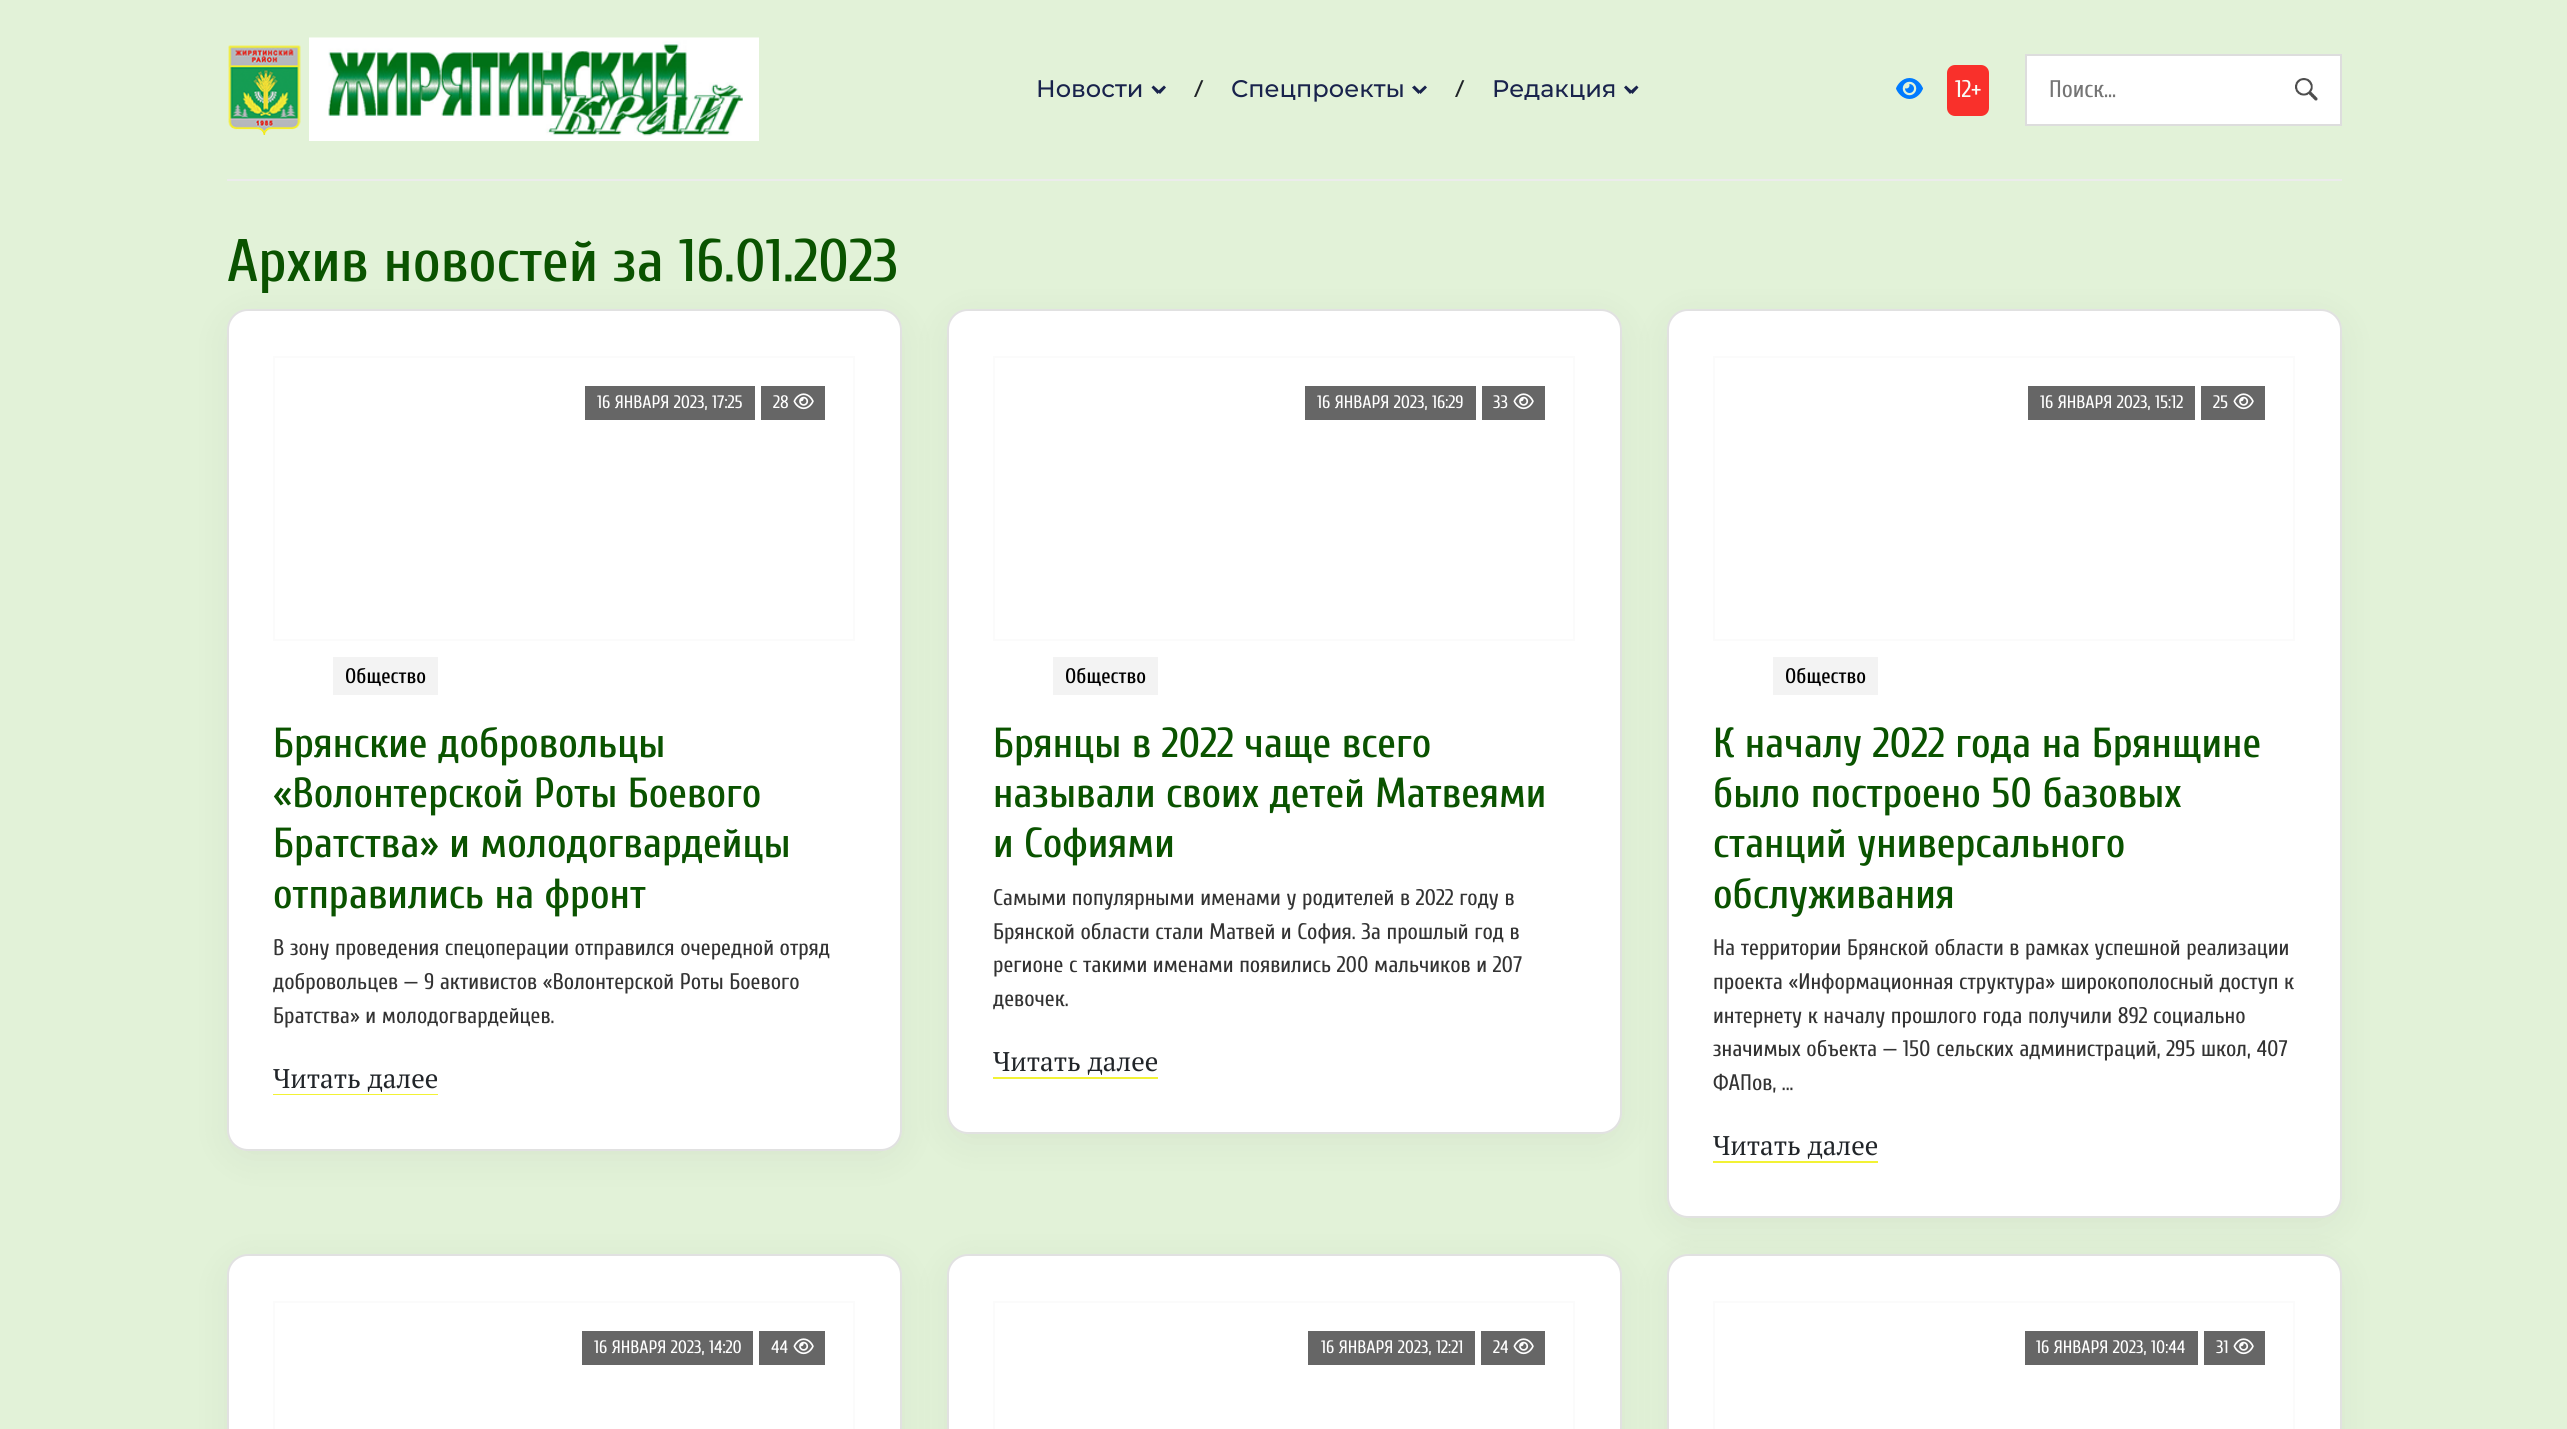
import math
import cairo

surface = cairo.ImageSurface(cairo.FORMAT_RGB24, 2567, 1429)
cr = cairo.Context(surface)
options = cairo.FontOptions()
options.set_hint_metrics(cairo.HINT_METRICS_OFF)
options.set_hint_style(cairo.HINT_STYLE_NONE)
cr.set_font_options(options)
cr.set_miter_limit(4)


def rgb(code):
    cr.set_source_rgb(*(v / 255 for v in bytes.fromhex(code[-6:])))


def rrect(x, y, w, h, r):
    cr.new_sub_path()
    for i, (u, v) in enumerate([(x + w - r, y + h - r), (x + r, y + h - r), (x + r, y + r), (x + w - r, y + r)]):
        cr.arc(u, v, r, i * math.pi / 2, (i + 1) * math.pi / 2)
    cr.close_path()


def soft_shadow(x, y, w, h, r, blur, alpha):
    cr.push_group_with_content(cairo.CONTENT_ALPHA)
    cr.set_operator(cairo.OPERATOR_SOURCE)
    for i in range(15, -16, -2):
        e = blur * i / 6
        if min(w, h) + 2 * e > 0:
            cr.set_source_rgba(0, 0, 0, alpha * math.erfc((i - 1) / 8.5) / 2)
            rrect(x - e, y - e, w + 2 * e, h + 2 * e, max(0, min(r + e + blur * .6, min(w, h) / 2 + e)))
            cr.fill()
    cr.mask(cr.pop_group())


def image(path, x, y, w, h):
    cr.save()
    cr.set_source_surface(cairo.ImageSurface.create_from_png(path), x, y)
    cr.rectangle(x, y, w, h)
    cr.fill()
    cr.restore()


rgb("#e2f2d8")
cr.paint()
rgb("#ececec")
cr.rectangle(227, 179, 2115, 2)
cr.fill()
image("img/1.png", 228, 45, 73, 90)
image("img/2.png", 309, 37, 450, 104)
rgb("#19234c")
cr.new_path()
cr.move_to(1164, 85.5)
cr.line_to(1166, 87.5)
cr.line_to(1160, 94)
cr.line_to(1157.5, 91.5)
cr.close_path()
cr.fill()
cr.new_path()
cr.move_to(1153.5, 85.5)
cr.line_to(1160, 91.5)
cr.line_to(1157.5, 94)
cr.line_to(1151.5, 87.5)
cr.close_path()
cr.fill()
cr.new_path()
cr.move_to(1425, 85.5)
cr.line_to(1427, 87.5)
cr.line_to(1420.5, 94)
cr.line_to(1418.5, 91.5)
cr.close_path()
cr.fill()
cr.new_path()
cr.move_to(1414.5, 85.5)
cr.line_to(1420.5, 91.5)
cr.line_to(1418.5, 94)
cr.line_to(1412, 87.5)
cr.close_path()
cr.fill()
cr.new_path()
cr.move_to(1636.5, 85.5)
cr.line_to(1638.5, 87.5)
cr.line_to(1632.5, 94)
cr.line_to(1630, 91.5)
cr.close_path()
cr.fill()
cr.new_path()
cr.move_to(1626, 85.5)
cr.line_to(1632.5, 91.5)
cr.line_to(1630, 94)
cr.line_to(1624, 87.5)
cr.close_path()
cr.fill()
image("img/3.png", 1896, 78, 27, 21)
rgb("#f9302b")
rrect(1947, 65, 42, 51, 8)
cr.fill()
rgb("#ffffff")
cr.rectangle(2027, 56, 313, 68)
cr.fill()
image("img/4.png", 2295, 78, 23, 23)
cr.rectangle(2026, 55, 315, 70)
rgb("#dddddd")
cr.stroke()
rgb("#000000")
soft_shadow(227, 317, 675, 841, 21, 19, 0.05)
rgb("#ffffff")
rrect(227, 309, 675, 842, 21)
cr.fill()
rrect(228, 310, 673, 840, 20)
cr.set_source_rgba(0, 0, 0, 0.12)
cr.stroke()
cr.rectangle(274, 357, 580, 283)
rgb("#fbfbfb")
cr.stroke()
rgb("#666666")
cr.rectangle(585, 386, 170, 34)
cr.fill()
cr.rectangle(761, 386, 64, 34)
cr.fill()
image("img/5.png", 793, 393, 21, 17)
rgb("#f3f3f3")
cr.rectangle(333, 657, 105, 38)
cr.fill()
rgb("#f2f235")
cr.rectangle(273, 1094, 165, 1)
cr.fill()
rgb("#000000")
soft_shadow(947, 317, 675, 825, 21, 19, 0.05)
rgb("#ffffff")
rrect(947, 309, 675, 825, 21)
cr.fill()
rrect(948, 310, 673, 823, 20)
cr.set_source_rgba(0, 0, 0, 0.12)
cr.stroke()
cr.rectangle(994, 357, 580, 283)
rgb("#fbfbfb")
cr.stroke()
rgb("#666666")
cr.rectangle(1305, 386, 171, 34)
cr.fill()
cr.rectangle(1482, 386, 63, 34)
cr.fill()
image("img/5.png", 1513, 393, 21, 17)
rgb("#f3f3f3")
cr.rectangle(1053, 657, 105, 38)
cr.fill()
rgb("#f2f235")
cr.rectangle(993, 1077, 165, 2)
cr.fill()
rgb("#000000")
soft_shadow(1667, 317, 675, 909, 21, 19, 0.05)
rgb("#ffffff")
rrect(1667, 309, 675, 909, 21)
cr.fill()
rrect(1668, 310, 673, 907, 20)
cr.set_source_rgba(0, 0, 0, 0.12)
cr.stroke()
cr.rectangle(1714, 357, 580, 283)
rgb("#fbfbfb")
cr.stroke()
rgb("#666666")
cr.rectangle(2028, 386, 167, 34)
cr.fill()
cr.rectangle(2201, 386, 64, 34)
cr.fill()
image("img/5.png", 2233, 393, 21, 17)
rgb("#f3f3f3")
cr.rectangle(1773, 657, 105, 38)
cr.fill()
rgb("#f2f235")
cr.rectangle(1713, 1161, 165, 2)
cr.fill()
rgb("#000000")
soft_shadow(227, 1262, 675, 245, 21, 19, 0.05)
rgb("#ffffff")
rrect(227, 1254, 675, 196, 21)
cr.fill()
rrect(228, 1255, 673, 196, 20)
cr.set_source_rgba(0, 0, 0, 0.12)
cr.stroke()
cr.rectangle(274, 1302, 580, 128)
rgb("#fbfbfb")
cr.stroke()
rgb("#666666")
cr.rectangle(582, 1331, 171, 34)
cr.fill()
cr.rectangle(759, 1331, 66, 34)
cr.fill()
image("img/5.png", 793, 1338, 21, 17)
rgb("#000000")
soft_shadow(947, 1262, 675, 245, 21, 19, 0.05)
rgb("#ffffff")
rrect(947, 1254, 675, 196, 21)
cr.fill()
rrect(948, 1255, 673, 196, 20)
cr.set_source_rgba(0, 0, 0, 0.12)
cr.stroke()
cr.rectangle(994, 1302, 580, 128)
rgb("#fbfbfb")
cr.stroke()
rgb("#666666")
cr.rectangle(1308, 1331, 167, 34)
cr.fill()
cr.rectangle(1481, 1331, 64, 34)
cr.fill()
image("img/5.png", 1513, 1338, 21, 17)
rgb("#000000")
soft_shadow(1667, 1262, 675, 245, 21, 19, 0.05)
rgb("#ffffff")
rrect(1667, 1254, 675, 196, 21)
cr.fill()
rrect(1668, 1255, 673, 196, 20)
cr.set_source_rgba(0, 0, 0, 0.12)
cr.stroke()
cr.rectangle(1714, 1302, 580, 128)
rgb("#fbfbfb")
cr.stroke()
rgb("#666666")
cr.rectangle(2025, 1331, 173, 34)
cr.fill()
cr.rectangle(2204, 1331, 61, 34)
cr.fill()
image("img/5.png", 2233, 1338, 21, 17)
cr.select_font_face("Montserrat Medium")
cr.set_font_size(24)
rgb("#19234c")
cr.move_to(1036, 97)
cr.show_text("Новости")
cr.select_font_face("Cuprum")
rgb("#212529")
cr.move_to(1194, 97)
cr.show_text("/")
cr.select_font_face("Montserrat Medium")
rgb("#19234c")
cr.move_to(1231, 97)
cr.show_text("Спецпроекты")
cr.select_font_face("Cuprum")
rgb("#212529")
cr.move_to(1455, 97)
cr.show_text("/")
cr.select_font_face("Montserrat Medium")
rgb("#19234c")
cr.move_to(1492, 97)
cr.show_text("Редакция")
cr.select_font_face("Cuprum")
rgb("#f9fcf7")
cr.move_to(1955, 97)
cr.show_text("12+")
rgb("#757575")
cr.move_to(2049, 97)
cr.show_text("Поиск...")
cr.select_font_face("Cuprum Medium")
cr.set_font_size(60)
rgb("#0a5300")
cr.move_to(227, 281)
cr.show_text("Архив новостей за 16.01.2023")
cr.select_font_face("Cuprum")
cr.set_font_size(18)
rgb("#ffffff")
cr.move_to(597, 408)
cr.show_text("16 ЯНВАРЯ 2023, 17:25")
cr.move_to(773, 408)
cr.show_text("28")
cr.select_font_face("Cuprum Medium")
cr.set_font_size(21)
rgb("#000000")
cr.move_to(345, 683)
cr.show_text("Общество")
cr.set_font_size(42)
rgb("#0a5300")
for x, y, s in [
    (273, 757, "Брянские добровольцы"),
    (273, 807, "«Волонтерской Роты Боевого"),
    (273, 857, "Братства» и молодогвардейцы"),
    (273, 908, "отправились на фронт"),
]:
    cr.move_to(x, y)
    cr.show_text(s)
cr.select_font_face("Cuprum")
cr.set_font_size(22.5)
rgb("#333333")
for x, y, s in [
    (273, 955, "В зону проведения спецоперации отправился очередной отряд"),
    (273, 989, "добровольцев — 9 активистов «Волонтерской Роты Боевого"),
    (273, 1023, "Братства» и молодогвардейцев."),
]:
    cr.move_to(x, y)
    cr.show_text(s)
cr.select_font_face("PT Serif")
cr.set_font_size(27)
rgb("#212529")
cr.move_to(273, 1088)
cr.show_text("Читать далее")
cr.select_font_face("Cuprum")
cr.set_font_size(18)
rgb("#ffffff")
cr.move_to(1317, 408)
cr.show_text("16 ЯНВАРЯ 2023, 16:29")
cr.move_to(1493, 408)
cr.show_text("33")
cr.select_font_face("Cuprum Medium")
cr.set_font_size(21)
rgb("#000000")
cr.move_to(1065, 683)
cr.show_text("Общество")
cr.set_font_size(42)
rgb("#0a5300")
for x, y, s in [
    (993, 757, "Брянцы в 2022 чаще всего"),
    (993, 807, "называли своих детей Матвеями"),
    (993, 857, "и Софиями"),
]:
    cr.move_to(x, y)
    cr.show_text(s)
cr.select_font_face("Cuprum")
cr.set_font_size(22.5)
rgb("#333333")
for x, y, s in [
    (993, 905, "Самыми популярными именами у родителей в 2022 году в"),
    (993, 939, "Брянской области стали Матвей и София. За прошлый год в"),
    (993, 972, "регионе с такими именами появились 200 мальчиков и 207"),
    (993, 1006, "девочек."),
]:
    cr.move_to(x, y)
    cr.show_text(s)
cr.select_font_face("PT Serif")
cr.set_font_size(27)
rgb("#212529")
cr.move_to(993, 1071)
cr.show_text("Читать далее")
cr.select_font_face("Cuprum")
cr.set_font_size(18)
rgb("#ffffff")
cr.move_to(2040, 408)
cr.show_text("16 ЯНВАРЯ 2023, 15:12")
cr.move_to(2213, 408)
cr.show_text("25")
cr.select_font_face("Cuprum Medium")
cr.set_font_size(21)
rgb("#000000")
cr.move_to(1785, 683)
cr.show_text("Общество")
cr.set_font_size(42)
rgb("#0a5300")
for x, y, s in [
    (1713, 757, "К началу 2022 года на Брянщине"),
    (1713, 807, "было построено 50 базовых"),
    (1713, 857, "станций универсального"),
    (1713, 908, "обслуживания"),
]:
    cr.move_to(x, y)
    cr.show_text(s)
cr.select_font_face("Cuprum")
cr.set_font_size(22.5)
rgb("#333333")
for x, y, s in [
    (1713, 955, "На территории Брянской области в рамках успешной реализации"),
    (1713, 989, "проекта «Информационная структура» широкополосный доступ к"),
    (1713, 1023, "интернету к началу прошлого года получили 892 социально"),
    (1713, 1056, "значимых объекта — 150 сельских администраций, 295 школ, 407"),
    (1713, 1090, "ФАПов, ..."),
]:
    cr.move_to(x, y)
    cr.show_text(s)
cr.select_font_face("PT Serif")
cr.set_font_size(27)
rgb("#212529")
cr.move_to(1713, 1155)
cr.show_text("Читать далее")
cr.select_font_face("Cuprum")
cr.set_font_size(18)
rgb("#ffffff")
for x, y, s in [
    (594, 1353, "16 ЯНВАРЯ 2023, 14:20"),
    (771, 1353, "44"),
    (1321, 1353, "16 ЯНВАРЯ 2023, 12:21"),
    (1493, 1353, "24"),
    (2036, 1353, "16 ЯНВАРЯ 2023, 10:44"),
    (2216, 1353, "31"),
]:
    cr.move_to(x, y)
    cr.show_text(s)
surface.write_to_png("page.png")
